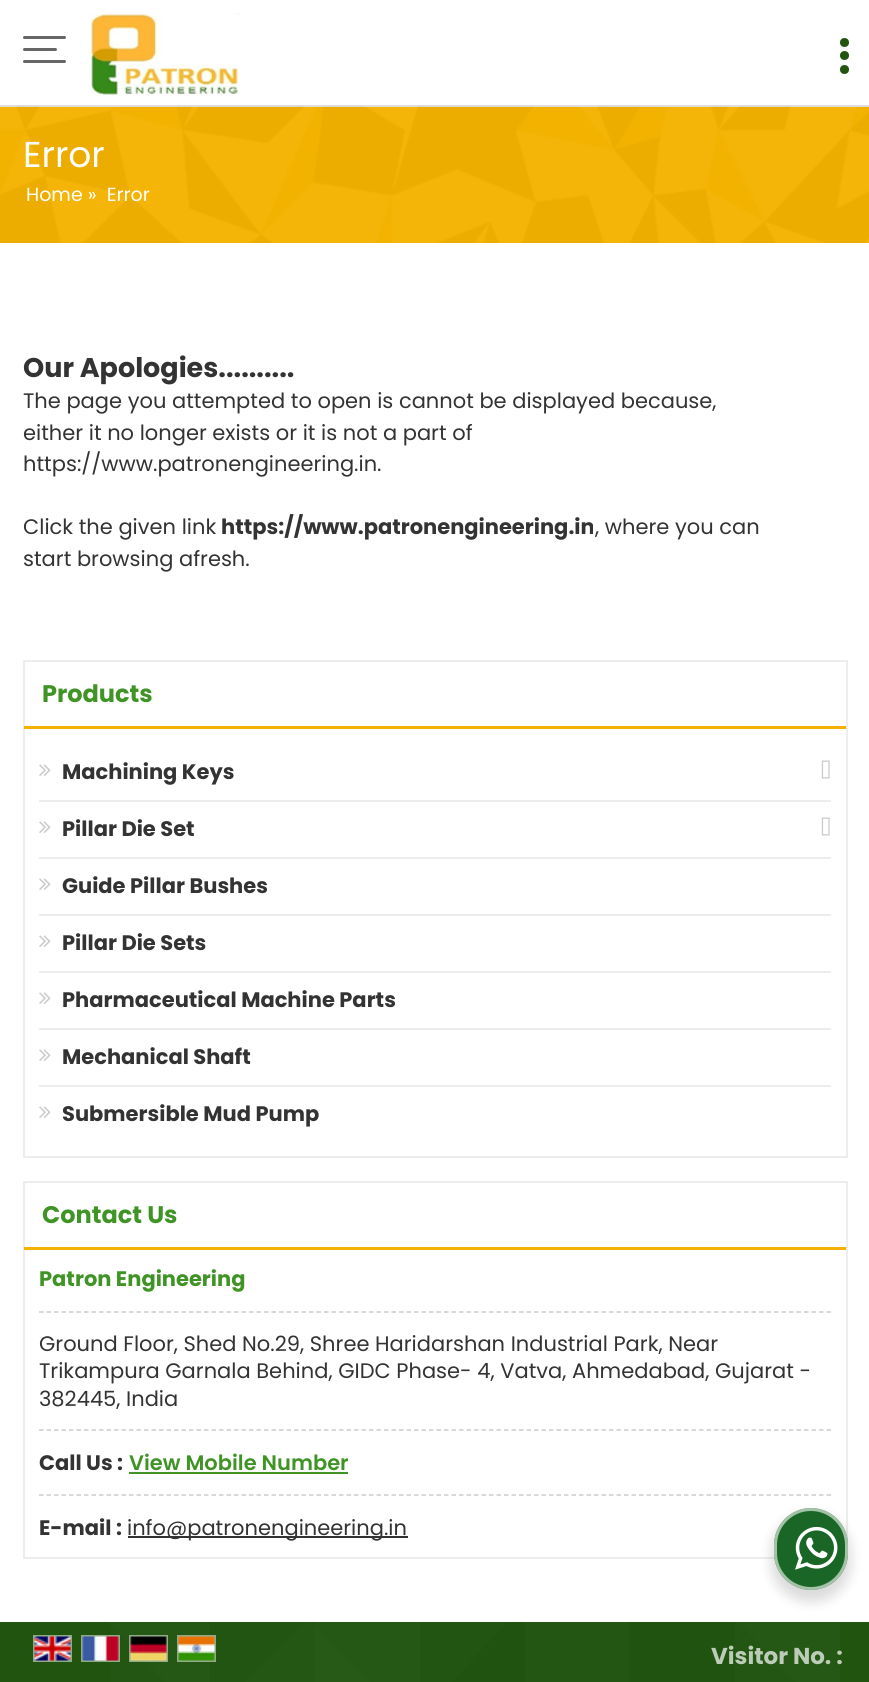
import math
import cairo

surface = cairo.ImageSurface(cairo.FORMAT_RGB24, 869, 1682)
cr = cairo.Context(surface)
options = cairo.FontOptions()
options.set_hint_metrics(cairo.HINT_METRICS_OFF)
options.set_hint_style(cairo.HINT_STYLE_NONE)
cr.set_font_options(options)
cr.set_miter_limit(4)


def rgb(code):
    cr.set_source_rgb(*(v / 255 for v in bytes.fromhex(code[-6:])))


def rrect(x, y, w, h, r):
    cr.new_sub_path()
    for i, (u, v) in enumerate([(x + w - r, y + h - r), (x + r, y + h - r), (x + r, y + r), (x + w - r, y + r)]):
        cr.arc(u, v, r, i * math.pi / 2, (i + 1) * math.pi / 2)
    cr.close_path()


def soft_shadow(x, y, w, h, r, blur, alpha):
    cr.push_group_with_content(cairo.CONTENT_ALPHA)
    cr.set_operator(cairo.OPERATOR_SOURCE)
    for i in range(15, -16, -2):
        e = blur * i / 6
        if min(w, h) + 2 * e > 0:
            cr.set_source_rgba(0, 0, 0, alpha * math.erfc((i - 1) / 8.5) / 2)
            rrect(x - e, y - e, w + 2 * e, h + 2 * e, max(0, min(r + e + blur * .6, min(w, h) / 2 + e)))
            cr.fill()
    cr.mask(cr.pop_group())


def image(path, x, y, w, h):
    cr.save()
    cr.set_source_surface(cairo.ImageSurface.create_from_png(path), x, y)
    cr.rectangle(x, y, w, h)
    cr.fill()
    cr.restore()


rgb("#ffffff")
cr.paint()
rgb("#dedede")
cr.rectangle(0, 105, 869, 2)
cr.fill()
rgb("#666666")
rrect(23, 36, 43, 3, 1.5)
cr.fill()
rrect(23, 48, 34, 3, 1.5)
cr.fill()
rrect(23, 60, 43, 3, 1.5)
cr.fill()
image("img/1.png", 90, 13, 149, 83)
rgb("#20540f")
cr.arc(844.5, 55.5, 4.5, 0, 2 * math.pi)
cr.fill()
cr.arc(844.5, 42.5, 4.5, 0, 2 * math.pi)
cr.fill()
cr.arc(844.5, 69.5, 4.5, 0, 2 * math.pi)
cr.fill()
rgb("#f4b200")
cr.rectangle(0, 107, 869, 136)
cr.fill()
image("img/2.png", 0, 106, 869, 137)
cr.rectangle(24, 661, 823, 496)
rgb("#ededed")
cr.stroke()
rgb("#f4b200")
cr.rectangle(24, 726, 822, 3)
cr.fill()
rgb("#ededed")
cr.rectangle(39, 800, 792, 2)
cr.fill()
image("img/3.png", 39, 764, 12, 12)
image("img/4.png", 821, 760, 9, 19)
cr.rectangle(39, 857, 792, 2)
cr.fill()
image("img/3.png", 39, 821, 12, 12)
image("img/4.png", 821, 817, 9, 19)
cr.rectangle(39, 914, 792, 2)
cr.fill()
image("img/3.png", 39, 878, 12, 12)
cr.rectangle(39, 971, 792, 2)
cr.fill()
image("img/3.png", 39, 935, 12, 12)
cr.rectangle(39, 1028, 792, 2)
cr.fill()
image("img/3.png", 39, 992, 12, 12)
cr.rectangle(39, 1085, 792, 2)
cr.fill()
image("img/3.png", 39, 1049, 12, 12)
image("img/3.png", 39, 1106, 12, 12)
cr.rectangle(24, 1182, 823, 376)
cr.stroke()
rgb("#f4b200")
cr.rectangle(24, 1247, 822, 3)
cr.fill()
cr.new_path()
cr.move_to(39, 1312)
cr.line_to(831, 1312)
rgb("#cccccc")
cr.set_line_width(1.5)
cr.set_dash([4.5, 3])
cr.stroke()
cr.new_path()
cr.move_to(39, 1430)
cr.line_to(831, 1430)
cr.stroke()
rgb("#409426")
cr.rectangle(129, 1472, 219, 2)
cr.fill()
cr.new_path()
cr.move_to(39, 1495)
cr.line_to(831, 1495)
rgb("#cccccc")
cr.stroke()
rgb("#333333")
cr.rectangle(128, 1536, 280, 2)
cr.fill()
rgb("#20540f")
cr.rectangle(0, 1622, 869, 60)
cr.fill()
image("img/5.png", 110, 1622, 730, 60)
cr.rectangle(34, 1636, 37, 25)
rgb("#90aa87")
cr.set_line_width(2)
cr.set_dash([])
cr.stroke()
cr.rectangle(82, 1636, 37, 25)
cr.set_source_rgba(1, 1, 1, 0.5)
cr.stroke()
cr.rectangle(130, 1636, 37, 25)
cr.stroke()
cr.rectangle(178, 1636, 37, 25)
cr.stroke()
image("img/6.png", 34, 1636, 37, 25)
image("img/7.png", 82, 1636, 37, 25)
image("img/8.png", 130, 1636, 37, 25)
image("img/9.png", 178, 1636, 37, 25)
rgb("#000000")
soft_shadow(771, 1514, 80, 88, 40, 6, 0.14)
rgb("#196626")
rrect(774, 1508, 74, 82, 37)
cr.fill()
rrect(775.5, 1509.5, 71, 79, 35.5)
cr.set_source_rgba(1, 1, 1, 0.6)
cr.set_line_width(3)
cr.stroke()
image("img/10.png", 795, 1526, 43, 44)
cr.select_font_face("Poppins")
cr.set_font_size(36)
rgb("#ffffff")
cr.move_to(23, 167)
cr.show_text("Error")
cr.set_font_size(19)
cr.move_to(26, 201)
cr.show_text("Home »  Error")
cr.select_font_face("Poppins", cairo.FONT_SLANT_NORMAL, cairo.FONT_WEIGHT_BOLD)
cr.set_font_size(27)
rgb("#333333")
cr.move_to(23, 377)
cr.show_text("Our Apologies..........")
cr.select_font_face("Poppins")
cr.set_font_size(21)
for x, y, s in [
    (23, 408, "The page you attempted to open is cannot be displayed because,"),
    (23, 440, "either it no longer exists or it is not a part of"),
    (23, 471, "https://www.patronengineering.in."),
    (23, 534, "Click the given link"),
]:
    cr.move_to(x, y)
    cr.show_text(s)
cr.select_font_face("Poppins", cairo.FONT_SLANT_NORMAL, cairo.FONT_WEIGHT_BOLD)
cr.move_to(221, 534)
cr.show_text("https://www.patronengineering.in")
cr.select_font_face("Poppins")
cr.move_to(595, 534)
cr.show_text(", where you can")
cr.move_to(23, 566)
cr.show_text("start browsing afresh.")
cr.select_font_face("Poppins", cairo.FONT_SLANT_NORMAL, cairo.FONT_WEIGHT_BOLD)
cr.set_font_size(24)
rgb("#409426")
cr.move_to(42, 702)
cr.show_text("Products")
cr.set_font_size(21)
rgb("#333333")
for x, y, s in [
    (62, 779, "Machining Keys"),
    (62, 836, "Pillar Die Set"),
    (62, 893, "Guide Pillar Bushes"),
    (62, 950, "Pillar Die Sets"),
    (62, 1007, "Pharmaceutical Machine Parts"),
    (62, 1064, "Mechanical Shaft"),
    (62, 1121, "Submersible Mud Pump"),
]:
    cr.move_to(x, y)
    cr.show_text(s)
cr.set_font_size(24)
rgb("#409426")
cr.move_to(42, 1223)
cr.show_text("Contact Us")
cr.set_font_size(21)
cr.move_to(39, 1286)
cr.show_text("Patron Engineering")
cr.select_font_face("Poppins")
rgb("#333333")
for x, y, s in [
    (39, 1351, "Ground Floor, Shed No.29, Shree Haridarshan Industrial Park, Near"),
    (39, 1378, "Trikampura Garnala Behind, GIDC Phase- 4, Vatva, Ahmedabad, Gujarat -"),
    (39, 1406, "382445, India"),
]:
    cr.move_to(x, y)
    cr.show_text(s)
cr.select_font_face("Poppins", cairo.FONT_SLANT_NORMAL, cairo.FONT_WEIGHT_BOLD)
cr.move_to(39, 1470)
cr.show_text("Call Us :")
cr.select_font_face("Poppins SemiBold")
rgb("#409426")
cr.move_to(129, 1470)
cr.show_text("View Mobile Number")
cr.select_font_face("Poppins", cairo.FONT_SLANT_NORMAL, cairo.FONT_WEIGHT_BOLD)
rgb("#333333")
cr.move_to(39, 1535)
cr.show_text("E-mail :")
cr.select_font_face("Poppins")
cr.move_to(127, 1535)
cr.show_text("info@patronengineering.in")
cr.select_font_face("Poppins", cairo.FONT_SLANT_NORMAL, cairo.FONT_WEIGHT_BOLD)
cr.set_font_size(23)
rgb("#bdccb8")
cr.move_to(711, 1664)
cr.show_text("Visitor No. :")
surface.write_to_png("page.png")
